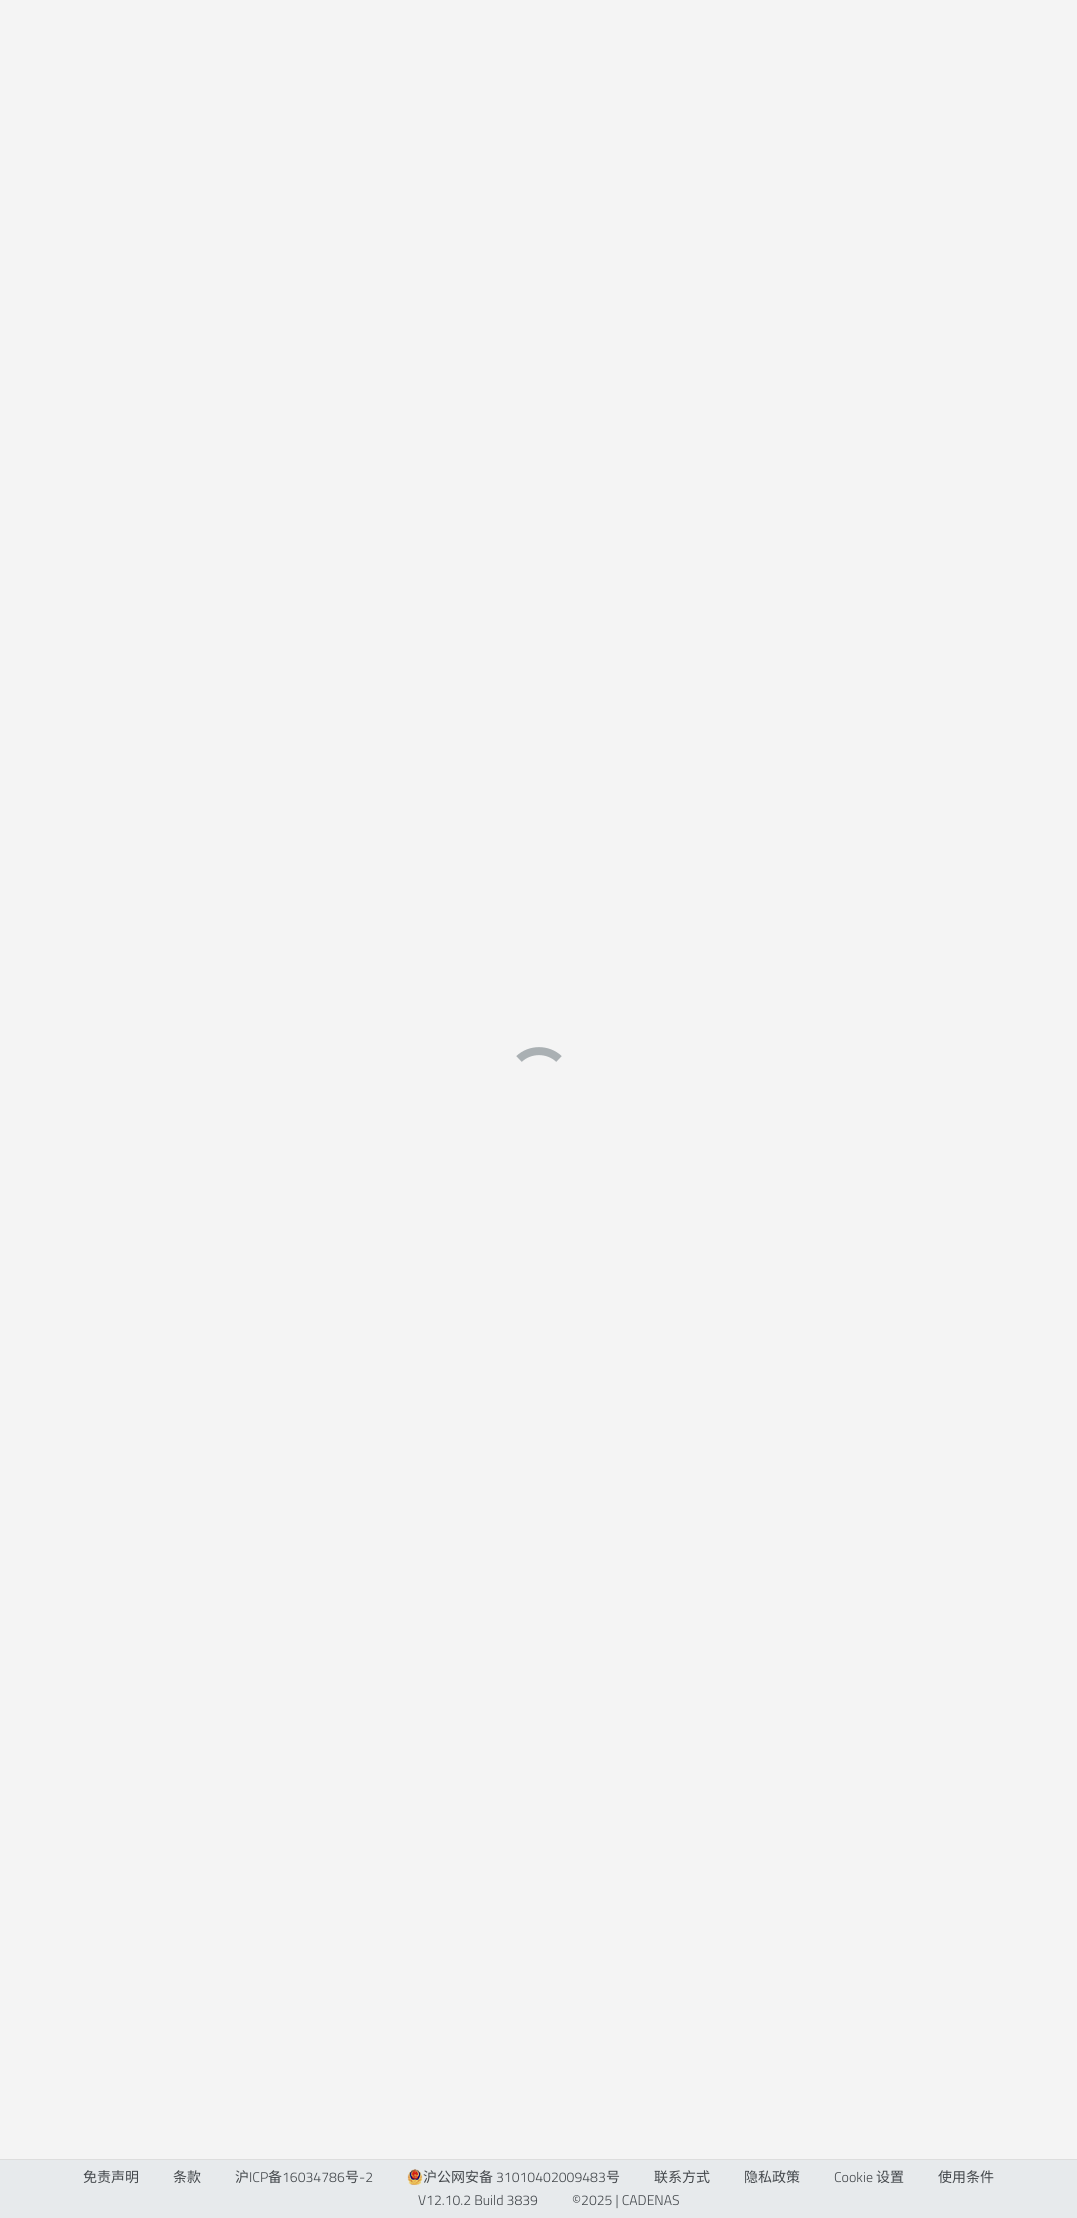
import math
import cairo

surface = cairo.ImageSurface(cairo.FORMAT_RGB24, 1077, 2218)
cr = cairo.Context(surface)
options = cairo.FontOptions()
options.set_hint_metrics(cairo.HINT_METRICS_OFF)
options.set_hint_style(cairo.HINT_STYLE_NONE)
cr.set_font_options(options)
cr.set_miter_limit(4)


def rgb(code):
    cr.set_source_rgb(*(v / 255 for v in bytes.fromhex(code[-6:])))


def image(path, x, y, w, h):
    cr.save()
    cr.set_source_surface(cairo.ImageSurface.create_from_png(path), x, y)
    cr.rectangle(x, y, w, h)
    cr.fill()
    cr.restore()


rgb("#e7eaec")
cr.paint()
rgb("#f4f4f4")
cr.rectangle(0, 0, 1077, 2159)
cr.fill()
cr.new_path()
cr.move_to(519, 1059)
cr.curve_to(530, 1048.5, 548, 1048.5, 559, 1059)
cr.move_to(519, 1059)
cr.curve_to(530, 1048.5, 548, 1048.5, 559, 1059)
cr.move_to(519, 1059)
cr.curve_to(530, 1048.5, 548, 1048.5, 559, 1059)
cr.move_to(519, 1059)
cr.curve_to(530, 1048.5, 548, 1048.5, 559, 1059)
rgb("#aab0b3")
cr.set_line_width(8)
cr.stroke()
rgb("#dddddd")
cr.rectangle(0, 2159, 1077, 1)
cr.fill()
image("img/1.png", 407, 2169, 16, 16)
cr.select_font_face("Noto Sans CJK SC")
cr.set_font_size(14)
rgb("#43474b")
for x, y, s in [
    (83, 2182, "免责声明"),
    (173, 2182, "条款"),
    (235, 2182, "沪"),
]:
    cr.move_to(x, y)
    cr.show_text(s)
cr.select_font_face("Titillium Web Light")
cr.move_to(249, 2182)
cr.show_text("ICP")
cr.select_font_face("Noto Sans CJK SC")
cr.move_to(268, 2182)
cr.show_text("备")
cr.select_font_face("Titillium Web Light")
cr.move_to(282, 2182)
cr.show_text("16034786")
cr.select_font_face("Noto Sans CJK SC")
cr.move_to(345, 2182)
cr.show_text("号")
cr.select_font_face("Titillium Web Light")
cr.move_to(359, 2182)
cr.show_text("-2")
cr.select_font_face("Noto Sans CJK SC")
cr.move_to(423, 2182)
cr.show_text("沪公网安备")
cr.select_font_face("Titillium Web Light")
cr.move_to(496, 2182)
cr.show_text("31010402009483")
cr.select_font_face("Noto Sans CJK SC")
for x, y, s in [
    (606, 2182, "号"),
    (654, 2182, "联系方式"),
    (744, 2182, "隐私政策"),
]:
    cr.move_to(x, y)
    cr.show_text(s)
cr.select_font_face("Titillium Web Light")
cr.move_to(834, 2182)
cr.show_text("Cookie")
cr.select_font_face("Noto Sans CJK SC")
cr.move_to(876, 2182)
cr.show_text("设置")
cr.move_to(938, 2182)
cr.show_text("使用条件")
cr.select_font_face("Titillium Web Light")
cr.move_to(418, 2205)
cr.show_text("V12.10.2 Build 3839")
cr.move_to(572, 2205)
cr.show_text("©2025 | CADENAS")
surface.write_to_png("page.png")
